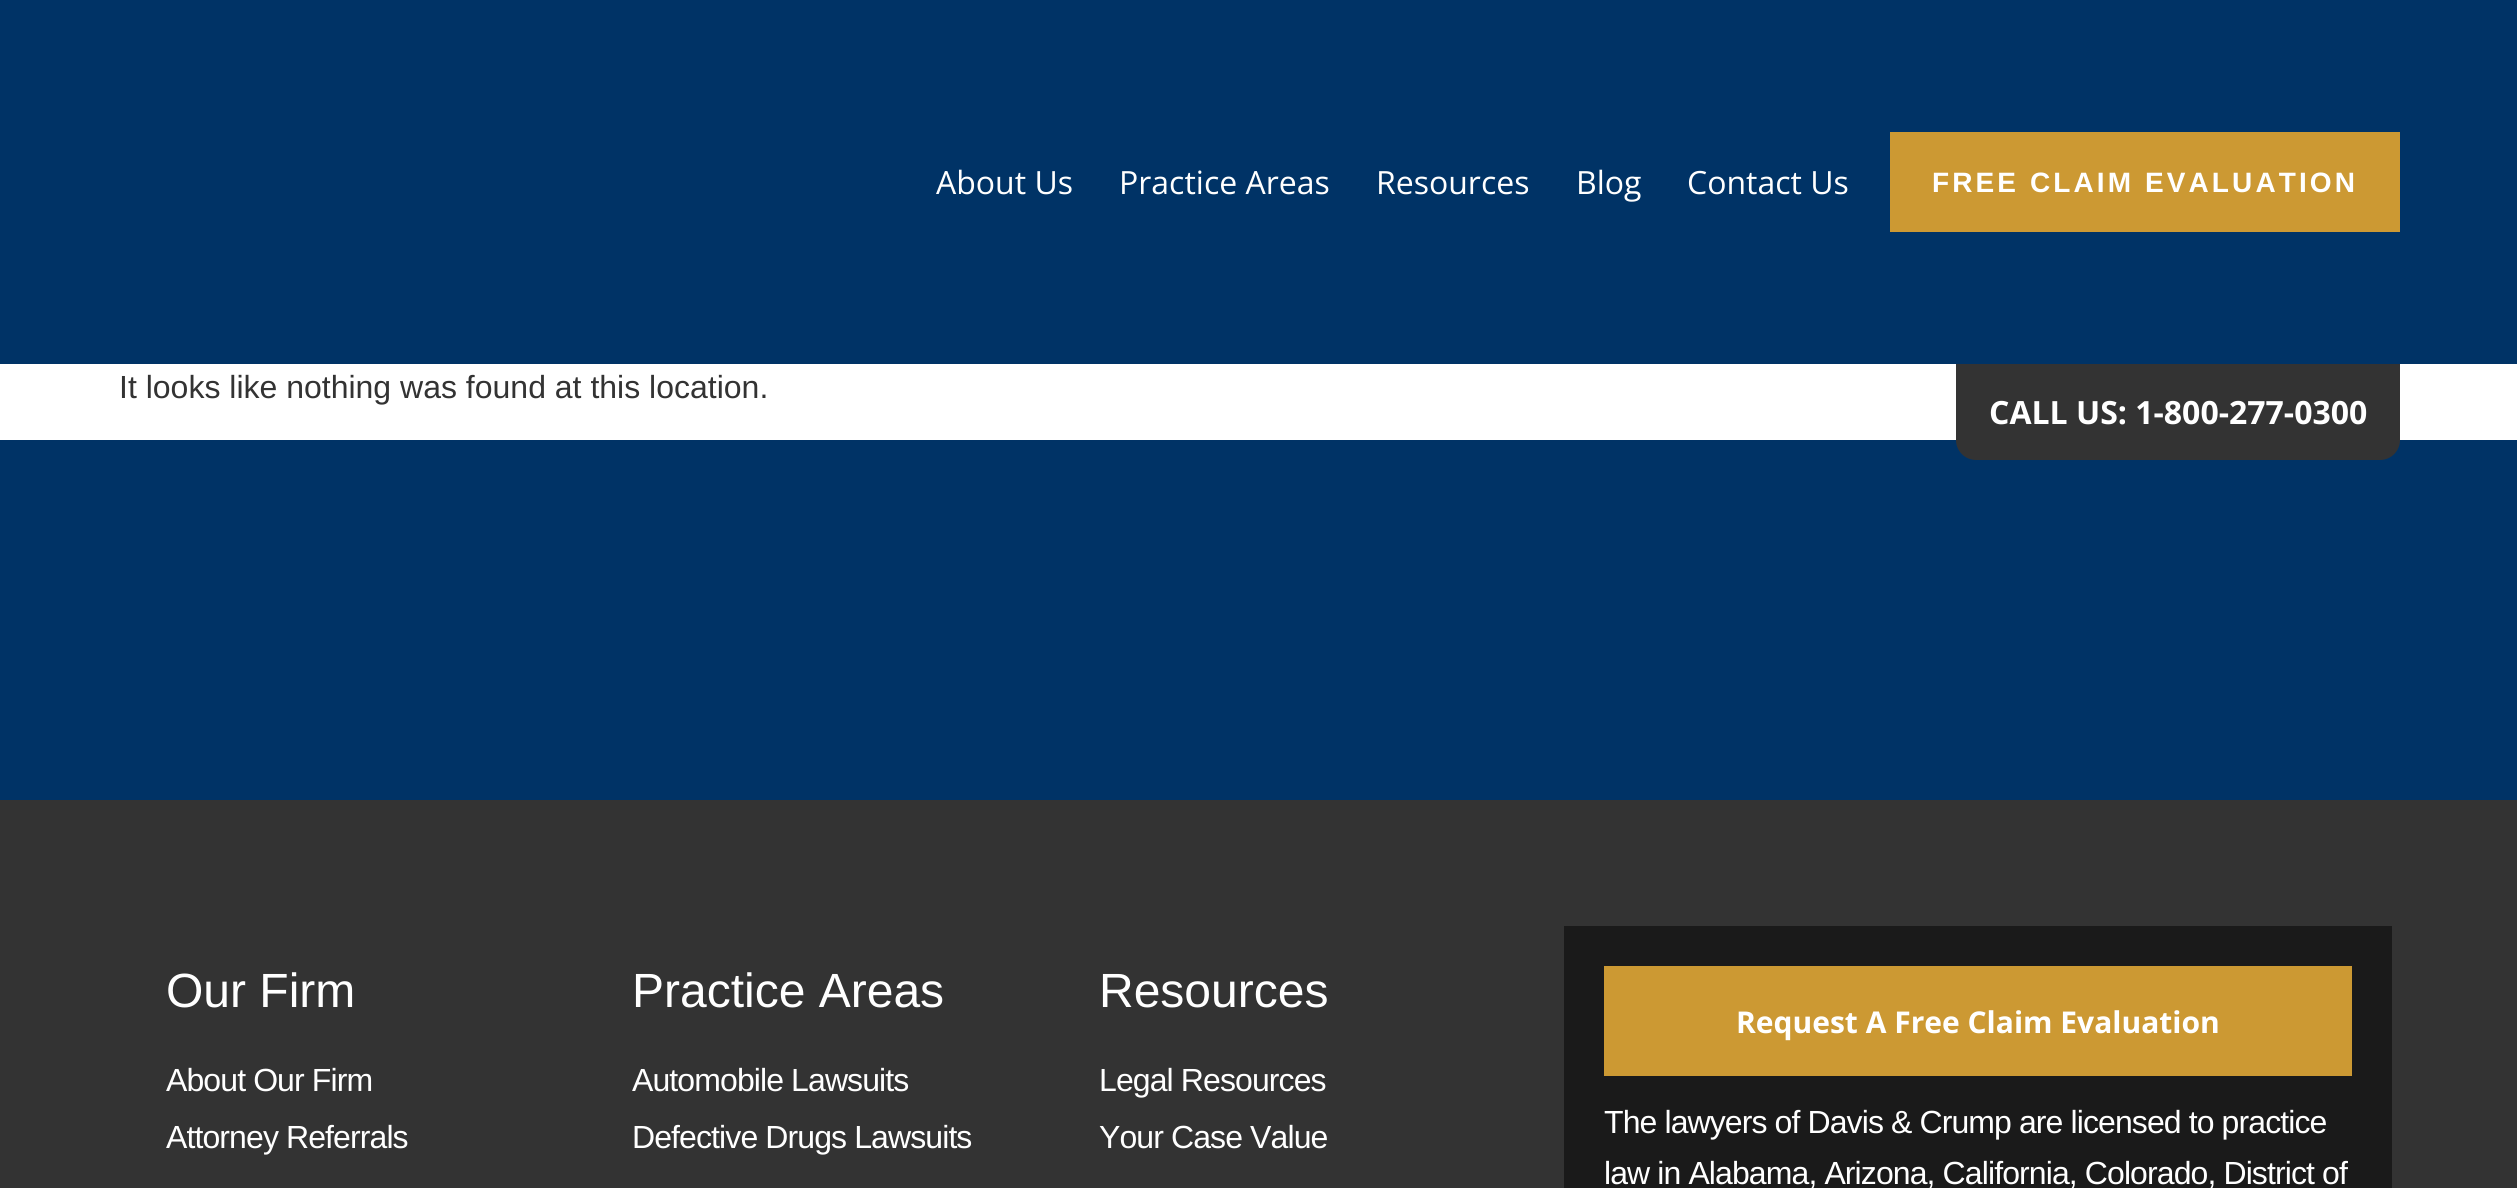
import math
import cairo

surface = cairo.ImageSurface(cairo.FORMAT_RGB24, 2517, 1188)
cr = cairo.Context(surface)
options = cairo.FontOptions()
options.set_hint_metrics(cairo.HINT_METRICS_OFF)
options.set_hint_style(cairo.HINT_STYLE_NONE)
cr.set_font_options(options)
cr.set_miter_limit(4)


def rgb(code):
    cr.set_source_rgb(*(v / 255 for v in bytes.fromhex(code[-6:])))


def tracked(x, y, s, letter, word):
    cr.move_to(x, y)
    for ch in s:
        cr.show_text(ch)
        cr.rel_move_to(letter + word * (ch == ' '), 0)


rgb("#ffffff")
cr.paint()
for x, y, w, h, color in [
    (0, 0, 2517, 364, "#003366"),
    (1890, 132, 510, 100, "#cc9933"),
    (0, 440, 2517, 360, "#003366"),
]:
    rgb(color)
    cr.rectangle(x, y, w, h)
    cr.fill()
rgb("#333333")
cr.new_path()
cr.move_to(1956, 364)
cr.line_to(2400, 364)
cr.line_to(2400, 440)
cr.curve_to(2400, 451, 2391, 460, 2380, 460)
cr.line_to(1976, 460)
cr.curve_to(1965, 460, 1956, 451, 1956, 440)
cr.close_path()
cr.fill()
for x, y, w, h, color in [
    (0, 800, 2517, 388, "#333333"),
    (1564, 926, 828, 262, "#1a1a1a"),
    (1604, 966, 748, 110, "#cc9933"),
]:
    rgb(color)
    cr.rectangle(x, y, w, h)
    cr.fill()
cr.select_font_face("Liberation Sans")
cr.set_font_size(32)
rgb("#333333")
cr.move_to(119, 398)
cr.show_text("It looks like nothing was found at this location.")
cr.select_font_face("Open Sans")
rgb("#ffffff")
for x, y, s in [
    (936, 194, "About Us"),
    (1119, 194, "Practice Areas"),
    (1376, 194, "Resources"),
    (1576, 194, "Blog"),
    (1687, 194, "Contact Us"),
]:
    cr.move_to(x, y)
    cr.show_text(s)
cr.select_font_face("Liberation Sans", cairo.FONT_SLANT_NORMAL, cairo.FONT_WEIGHT_BOLD)
cr.set_font_size(28)
tracked(1932, 192, "FREE CLAIM EVALUATION", 3.1, 0)
cr.select_font_face("Open Sans", cairo.FONT_SLANT_NORMAL, cairo.FONT_WEIGHT_BOLD)
cr.set_font_size(32)
cr.move_to(1989, 424)
cr.show_text("CALL US: 1-800-277-0300")
cr.select_font_face("Liberation Sans")
cr.set_font_size(48)
cr.move_to(166, 1007)
cr.show_text("Our Firm")
cr.set_font_size(32)
tracked(166, 1091, "About Our Firm", -0.9, 0)
tracked(166, 1148, "Attorney Referrals", -0.9, 0)
cr.set_font_size(48)
cr.move_to(632, 1007)
cr.show_text("Practice Areas")
cr.set_font_size(32)
tracked(632, 1091, "Automobile Lawsuits", -0.9, 0)
tracked(632, 1148, "Defective Drugs Lawsuits", -0.9, 0)
cr.set_font_size(48)
cr.move_to(1099, 1007)
cr.show_text("Resources")
cr.set_font_size(32)
tracked(1099, 1091, "Legal Resources", -0.9, 0)
tracked(1099, 1148, "Your Case Value", -0.9, 0)
cr.select_font_face("Open Sans", cairo.FONT_SLANT_NORMAL, cairo.FONT_WEIGHT_BOLD)
cr.set_font_size(30)
cr.move_to(1736, 1033)
cr.show_text("Request A Free Claim Evaluation")
cr.select_font_face("Liberation Sans")
cr.set_font_size(32)
tracked(1604, 1133, "The lawyers of Davis & Crump are licensed to practice", -0.9, 0)
tracked(1604, 1184, "law in Alabama, Arizona, California, Colorado, District of", -0.9, 0)
surface.write_to_png("page.png")
